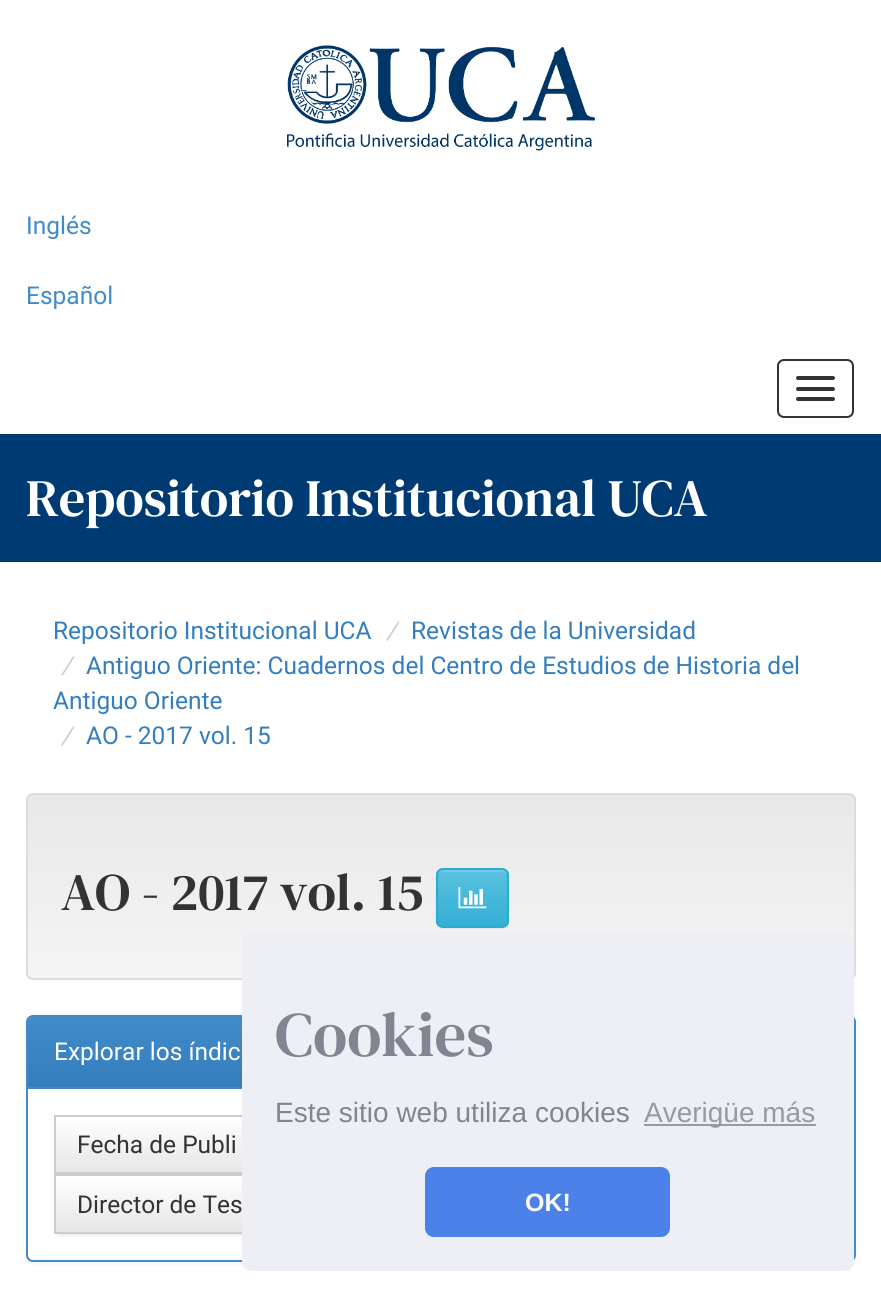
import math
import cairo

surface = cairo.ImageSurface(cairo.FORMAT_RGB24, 881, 1297)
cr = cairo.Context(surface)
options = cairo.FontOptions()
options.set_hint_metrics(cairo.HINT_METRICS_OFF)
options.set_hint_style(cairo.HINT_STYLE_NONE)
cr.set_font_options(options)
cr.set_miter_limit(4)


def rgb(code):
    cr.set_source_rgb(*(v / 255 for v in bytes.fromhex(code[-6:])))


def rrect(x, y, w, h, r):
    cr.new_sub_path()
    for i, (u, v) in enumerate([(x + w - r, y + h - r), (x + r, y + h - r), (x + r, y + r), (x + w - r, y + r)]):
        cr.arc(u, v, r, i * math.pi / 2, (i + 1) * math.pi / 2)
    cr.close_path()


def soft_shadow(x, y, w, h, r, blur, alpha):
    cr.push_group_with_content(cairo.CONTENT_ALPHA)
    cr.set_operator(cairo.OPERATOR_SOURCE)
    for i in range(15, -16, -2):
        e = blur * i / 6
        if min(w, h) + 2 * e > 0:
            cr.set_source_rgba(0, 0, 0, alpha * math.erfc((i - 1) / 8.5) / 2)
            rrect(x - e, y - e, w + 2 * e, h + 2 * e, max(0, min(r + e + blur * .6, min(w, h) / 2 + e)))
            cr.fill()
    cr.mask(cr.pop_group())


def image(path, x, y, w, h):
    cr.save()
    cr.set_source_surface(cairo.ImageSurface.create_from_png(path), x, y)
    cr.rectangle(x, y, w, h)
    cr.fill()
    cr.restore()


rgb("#ffffff")
cr.paint()
image("img/1.png", 287, 45, 308, 106)
rrect(778, 360, 75, 57, 6)
rgb("#333333")
cr.stroke()
rrect(796, 376, 39, 4, 2)
cr.fill()
rrect(796, 387, 39, 4, 2)
cr.fill()
rrect(796, 397, 39, 4, 2)
cr.fill()
rgb("#003a72")
cr.rectangle(0, 434, 881, 128)
cr.fill()
cr.save()
rrect(26, 793, 830, 187, 7)
cr.clip()
gradient = cairo.LinearGradient(441, 795, 441, 978)
gradient.add_color_stop_rgba(0, 0.91, 0.91, 0.91, 1)
gradient.add_color_stop_rgba(1, 0.961, 0.961, 0.961, 1)
cr.set_source(gradient)
cr.rectangle(26, 795, 830, 183)
cr.fill()
cr.restore()
rrect(27, 794, 828, 185, 6)
rgb("#dcdcdc")
cr.stroke()
rgb("#000000")
soft_shadow(436, 870, 73, 59, 7, 1, 0.07)
cr.save()
rrect(436, 868, 73, 60, 7)
cr.clip()
gradient = cairo.LinearGradient(473, 870, 473, 926)
gradient.add_color_stop_rgba(0, 0.357, 0.753, 0.871, 1)
gradient.add_color_stop_rgba(1, 0.192, 0.69, 0.835, 1)
cr.set_source(gradient)
cr.rectangle(436, 870, 73, 56)
cr.fill()
cr.restore()
cr.set_source_rgba(1, 1, 1, 0.15)
cr.new_path()
cr.move_to(443, 872)
cr.line_to(502, 872)
cr.curve_to(505, 872, 508, 874, 508, 877)
cr.curve_to(508, 868, 501, 870, 493, 870)
cr.line_to(453, 870)
cr.curve_to(445, 870, 438, 868, 438, 877)
cr.curve_to(438, 874, 440, 872, 443, 872)
cr.close_path()
cr.fill()
rrect(437, 869, 71, 58, 6)
rgb("#2aabd2")
cr.stroke()
image("img/2.png", 458, 887, 29, 22)
rgb("#000000")
soft_shadow(26, 1017, 830, 247, 7, 2, 0.05)
rgb("#ffffff")
rrect(27, 1016, 828, 245, 6)
cr.fill_preserve()
rgb("#428bca")
cr.stroke()
cr.new_path()
cr.move_to(33, 1017)
cr.line_to(849, 1017)
cr.curve_to(852, 1017, 854, 1019, 854, 1022)
cr.line_to(854, 1089)
cr.line_to(28, 1089)
cr.line_to(28, 1022)
cr.curve_to(28, 1019, 30, 1017, 33, 1017)
cr.close_path()
cr.fill()
gradient = cairo.LinearGradient(441, 1017, 441, 1087)
gradient.add_color_stop_rgba(0, 0.259, 0.545, 0.792, 1)
gradient.add_color_stop_rgba(1, 0.208, 0.494, 0.741, 1)
cr.set_source(gradient)
cr.new_path()
cr.move_to(33, 1017)
cr.line_to(849, 1017)
cr.curve_to(852, 1017, 854, 1019, 854, 1022)
cr.line_to(854, 1087)
cr.line_to(28, 1087)
cr.line_to(28, 1022)
cr.curve_to(28, 1019, 30, 1017, 33, 1017)
cr.close_path()
cr.fill()
rgb("#000000")
soft_shadow(54, 1117, 279, 59, 7, 1, 0.07)
gradient = cairo.LinearGradient(193, 1117, 193, 1173)
gradient.add_color_stop_rgba(0, 1, 1, 1, 1)
gradient.add_color_stop_rgba(1, 0.902, 0.902, 0.902, 1)
cr.set_source(gradient)
cr.rectangle(56, 1117, 186, 55)
cr.fill()
cr.rectangle(55, 1116, 277, 57)
rgb("#cccccc")
cr.stroke()
rgb("#000000")
soft_shadow(54, 1176, 230, 60, 7, 1, 0.07)
gradient = cairo.LinearGradient(169, 1176, 169, 1232)
gradient.add_color_stop_rgba(0, 1, 1, 1, 1)
gradient.add_color_stop_rgba(1, 0.902, 0.902, 0.902, 1)
cr.set_source(gradient)
cr.rectangle(56, 1176, 186, 56)
cr.fill()
cr.rectangle(55, 1175, 228, 58)
rgb("#cccccc")
cr.stroke()
rgb("#edeff5")
rrect(242, 931, 612, 340, 9)
cr.fill()
rgb("#9899a5")
cr.rectangle(644, 1124, 172, 2)
cr.fill()
rgb("#4b81e8")
rrect(425, 1167, 245, 70, 9)
cr.fill()
cr.select_font_face("Roboto")
cr.set_font_size(24.5)
rgb("#428bca")
cr.move_to(26, 234)
cr.show_text("Inglés")
cr.move_to(26, 304)
cr.show_text("Español")
cr.select_font_face("DM Serif Text")
cr.set_font_size(52.5)
rgb("#ffffff")
cr.move_to(26, 516)
cr.show_text("Repositorio Institucional UCA")
cr.select_font_face("Roboto")
cr.set_font_size(24.5)
rgb("#357ebd")
cr.move_to(53, 639)
cr.show_text("Repositorio Institucional UCA")
cr.select_font_face("Roboto", cairo.FONT_SLANT_ITALIC)
rgb("#cccccc")
cr.move_to(386, 639)
cr.show_text("/")
cr.select_font_face("Roboto")
rgb("#357ebd")
cr.move_to(411, 639)
cr.show_text("Revistas de la Universidad")
cr.select_font_face("Roboto", cairo.FONT_SLANT_ITALIC)
rgb("#cccccc")
cr.move_to(61, 674)
cr.show_text("/")
cr.select_font_face("Roboto")
rgb("#357ebd")
cr.move_to(86, 674)
cr.show_text("Antiguo Oriente: Cuadernos del Centro de Estudios de Historia del")
cr.move_to(53, 709)
cr.show_text("Antiguo Oriente")
cr.select_font_face("Roboto", cairo.FONT_SLANT_ITALIC)
rgb("#cccccc")
cr.move_to(61, 744)
cr.show_text("/")
cr.select_font_face("Roboto")
rgb("#357ebd")
cr.move_to(86, 744)
cr.show_text("AO - 2017 vol. 15")
cr.select_font_face("DM Serif Text")
cr.set_font_size(52.5)
rgb("#333333")
cr.move_to(61, 910)
cr.show_text("AO - 2017 vol. 15")
cr.select_font_face("Roboto")
cr.set_font_size(24.5)
rgb("#ffffff")
cr.move_to(54, 1060)
cr.show_text("Explorar los índic")
rgb("#333333")
cr.move_to(77, 1153)
cr.show_text("Fecha de Publi")
cr.move_to(77, 1213)
cr.show_text("Director de Tes")
cr.select_font_face("DM Serif Text")
cr.set_font_size(63)
rgb("#838391")
cr.move_to(275, 1056)
cr.show_text("Cookies")
cr.select_font_face("Liberation Sans")
cr.set_font_size(28)
cr.move_to(275, 1122)
cr.show_text("Este sitio web utiliza cookies")
rgb("#9899a5")
cr.move_to(644, 1122)
cr.show_text("Averigüe más")
cr.select_font_face("Liberation Sans", cairo.FONT_SLANT_NORMAL, cairo.FONT_WEIGHT_BOLD)
cr.set_font_size(25)
rgb("#ffffff")
cr.move_to(525, 1211)
cr.show_text("OK!")
surface.write_to_png("page.png")
